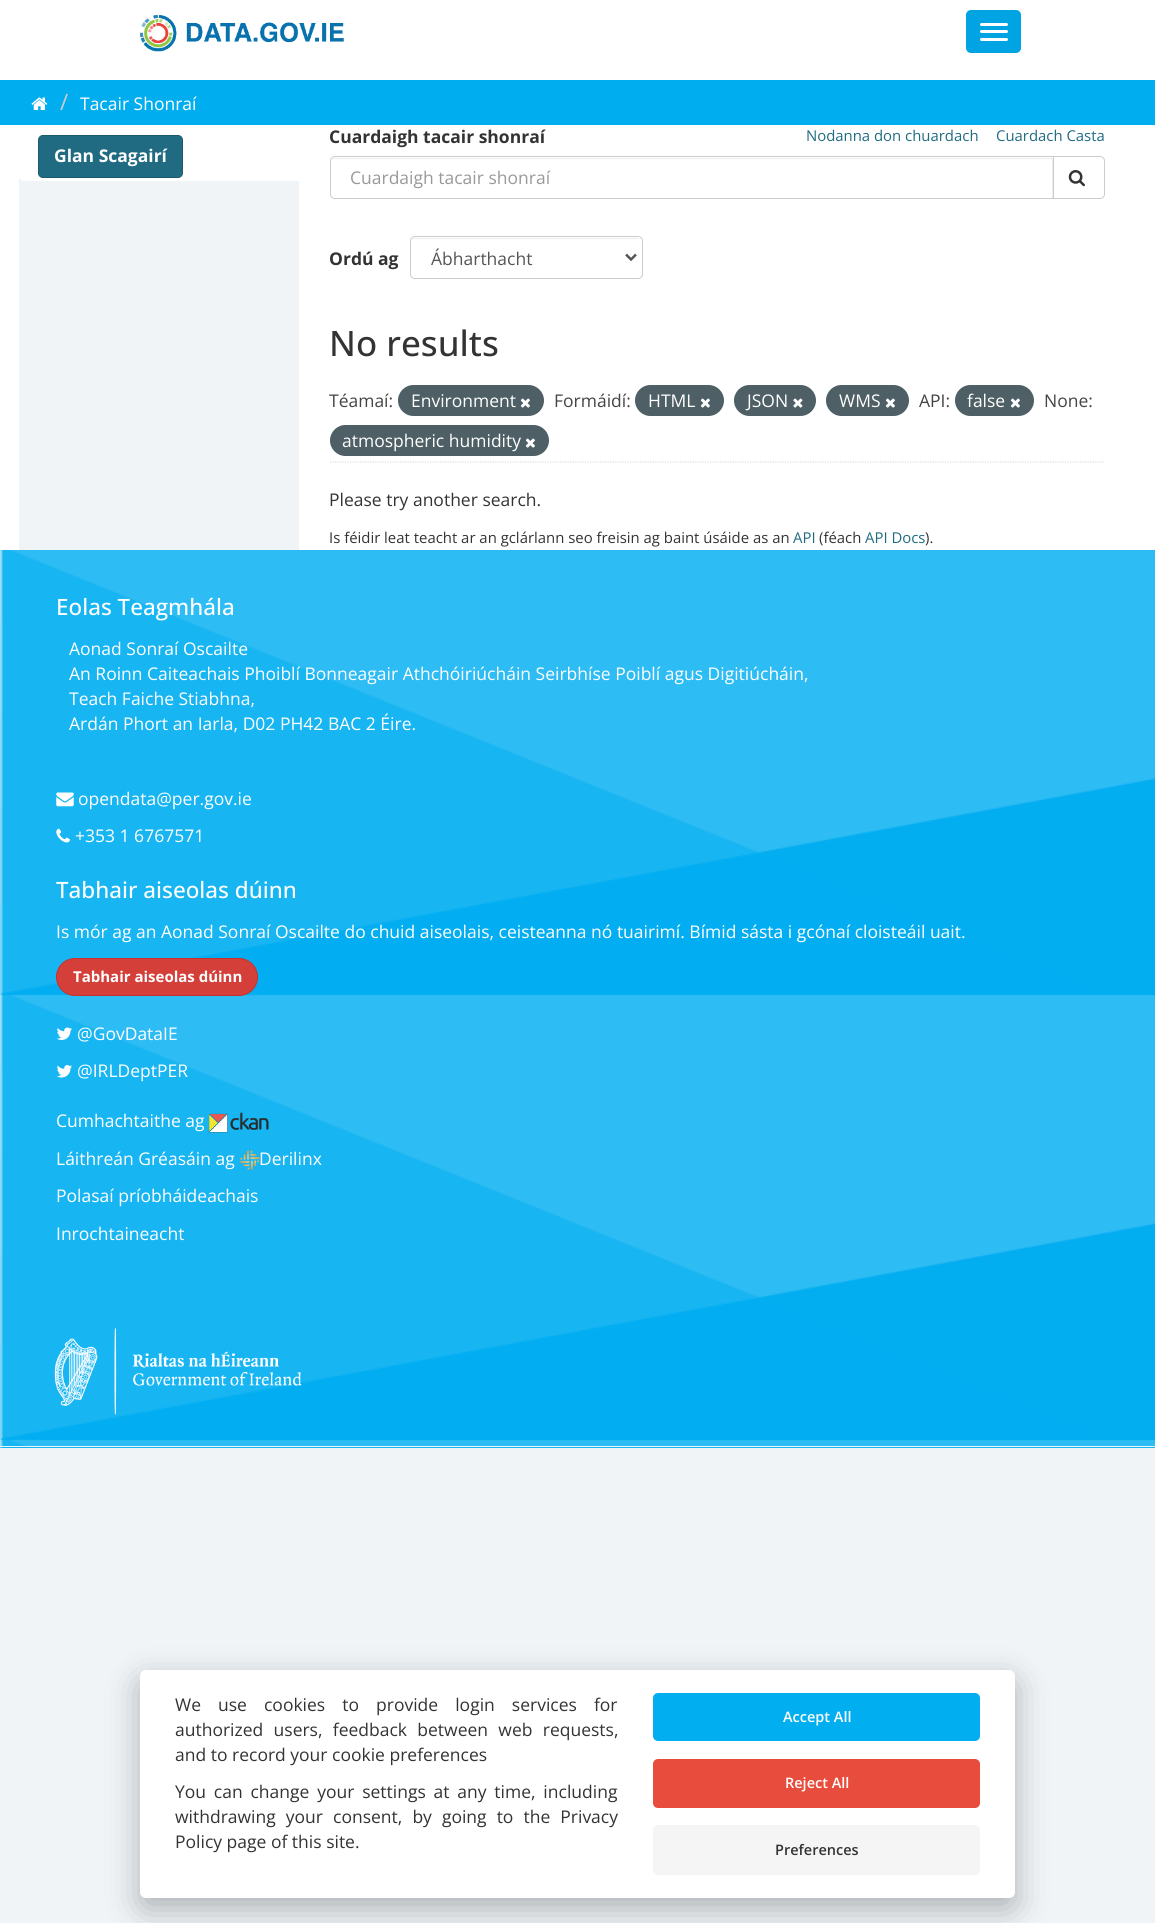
import math
import cairo

surface = cairo.ImageSurface(cairo.FORMAT_RGB24, 1155, 1923)
cr = cairo.Context(surface)
options = cairo.FontOptions()
options.set_hint_metrics(cairo.HINT_METRICS_OFF)
options.set_hint_style(cairo.HINT_STYLE_NONE)
cr.set_font_options(options)
cr.set_miter_limit(4)


def rgb(code):
    cr.set_source_rgb(*(v / 255 for v in bytes.fromhex(code[-6:])))


def tracked(x, y, s, letter, word):
    cr.move_to(x, y)
    for ch in s:
        cr.show_text(ch)
        cr.rel_move_to(letter + word * (ch == ' '), 0)


def rrect(x, y, w, h, r):
    cr.new_sub_path()
    for i, (u, v) in enumerate([(x + w - r, y + h - r), (x + r, y + h - r), (x + r, y + r), (x + w - r, y + r)]):
        cr.arc(u, v, r, i * math.pi / 2, (i + 1) * math.pi / 2)
    cr.close_path()


def soft_shadow(x, y, w, h, r, blur, alpha):
    cr.push_group_with_content(cairo.CONTENT_ALPHA)
    cr.set_operator(cairo.OPERATOR_SOURCE)
    for i in range(15, -16, -2):
        e = blur * i / 6
        if min(w, h) + 2 * e > 0:
            cr.set_source_rgba(0, 0, 0, alpha * math.erfc((i - 1) / 8.5) / 2)
            rrect(x - e, y - e, w + 2 * e, h + 2 * e, max(0, min(r + e + blur * .6, min(w, h) / 2 + e)))
            cr.fill()
    cr.mask(cr.pop_group())


def image(path, x, y, w, h):
    cr.save()
    cr.set_source_surface(cairo.ImageSurface.create_from_png(path), x, y)
    cr.rectangle(x, y, w, h)
    cr.fill()
    cr.restore()


rgb("#f0f4f7")
cr.paint()
rgb("#ffffff")
cr.rectangle(0, 0, 1155, 80)
cr.fill()
image("img/1.png", 140, 15, 204, 37)
rgb("#00a4e3")
rrect(966, 10, 55, 43, 5)
cr.fill()
rgb("#ffffff")
rrect(980, 23, 28, 3, 1.5)
cr.fill()
rrect(980, 30, 28, 3, 1.5)
cr.fill()
rrect(980, 38, 28, 3, 1.5)
cr.fill()
cr.rectangle(0, 125, 1155, 425)
cr.fill()
rgb("#00aeef")
cr.rectangle(0, 80, 1155, 45)
cr.fill()
image("img/2.png", 31, 97, 17, 13)
rgb("#f0f4f7")
cr.rectangle(19, 177, 280, 373)
cr.fill()
rgb("#ffffff")
cr.new_path()
cr.move_to(19, 125)
cr.line_to(299, 125)
cr.line_to(299, 181)
cr.line_to(23, 181)
cr.curve_to(21, 181, 19, 179, 19, 177)
cr.close_path()
cr.fill()
rgb("#206b82")
rrect(38.5, 135.5, 144, 42, 4.5)
cr.fill_preserve()
rgb("#1b5a6e")
cr.set_line_width(1)
cr.stroke()
cr.new_path()
cr.move_to(330, 462)
cr.line_to(1105, 462)
rgb("#dddddd")
cr.set_line_width(1.2)
cr.set_dash([1.25, 1.25])
cr.stroke()
rgb("#ececec")
cr.new_path()
cr.move_to(335, 159)
cr.line_to(1052, 159)
cr.line_to(1052, 198)
cr.line_to(1053, 198)
cr.line_to(1053, 158)
cr.line_to(335, 158)
cr.curve_to(333, 158, 331, 160, 331, 162)
cr.curve_to(331, 160, 333, 159, 335, 159)
cr.close_path()
cr.fill()
cr.new_path()
cr.move_to(335, 156.5)
cr.line_to(1053.5, 156.5)
cr.line_to(1053.5, 198.5)
cr.line_to(335, 198.5)
cr.curve_to(332.5, 198.5, 330.5, 196.5, 330.5, 194)
cr.line_to(330.5, 161)
cr.curve_to(330.5, 158.5, 332.5, 156.5, 335, 156.5)
cr.close_path()
rgb("#cccccc")
cr.set_line_width(1)
cr.set_dash([])
cr.stroke()
rgb("#ffffff")
cr.new_path()
cr.move_to(1053.5, 156.5)
cr.line_to(1100, 156.5)
cr.curve_to(1102.5, 156.5, 1104.5, 158.5, 1104.5, 161)
cr.line_to(1104.5, 194)
cr.curve_to(1104.5, 196.5, 1102.5, 198.5, 1100, 198.5)
cr.line_to(1053.5, 198.5)
cr.close_path()
cr.fill_preserve()
rgb("#cccccc")
cr.stroke()
image("img/3.png", 1068, 170, 17, 17)
rgb("#ececec")
cr.new_path()
cr.move_to(415, 239)
cr.line_to(638, 239)
cr.curve_to(639, 239, 640, 239, 640, 240)
cr.curve_to(640, 239, 638, 238, 637, 238)
cr.line_to(415, 238)
cr.curve_to(413, 238, 411, 240, 411, 242)
cr.curve_to(411, 240, 413, 239, 415, 239)
cr.close_path()
cr.fill()
rrect(410.5, 236.5, 232, 42, 4.5)
rgb("#cccccc")
cr.stroke()
cr.new_path()
cr.move_to(626, 254.5)
cr.line_to(631, 259.5)
cr.line_to(636, 254.5)
rgb("#555555")
cr.set_line_width(2.5)
cr.stroke()
rgb("#4e5f65")
rrect(398, 385, 146, 31, 15.5)
cr.fill()
image("img/4.png", 520, 398, 10, 10)
rrect(635, 385, 89, 31, 15.5)
cr.fill()
image("img/4.png", 700, 398, 10, 10)
rrect(734, 385, 82, 31, 15.5)
cr.fill()
image("img/5.png", 793, 398, 10, 10)
rrect(826, 385, 83, 31, 15.5)
cr.fill()
image("img/4.png", 885, 398, 10, 10)
rrect(955, 385, 79, 31, 15.5)
cr.fill()
image("img/4.png", 1010, 398, 10, 10)
rrect(330, 425, 219, 31, 15.5)
cr.fill()
image("img/4.png", 525, 438, 10, 10)
rgb("#01aef0")
cr.rectangle(0, 1447, 1155, 1)
cr.fill()
image("img/6.png", 0, 550, 1155, 898)
rgb("#f0f4f7")
cr.rectangle(0, 1446, 1155, 1)
cr.fill()
image("img/7.png", 56, 792, 18, 15)
image("img/8.png", 56, 828, 14, 15)
rgb("#d43f3a")
rrect(56.5, 958.5, 201, 37, 18.5)
cr.fill_preserve()
rgb("#c9302c")
cr.set_line_width(1)
cr.stroke()
image("img/9.png", 56, 1027, 16, 13)
image("img/10.png", 56, 1065, 16, 13)
image("img/11.png", 208, 1112, 61, 21)
image("img/12.png", 240, 1150, 20, 20)
image("img/13.png", 54, 1328, 248, 87)
rgb("#020203")
soft_shadow(140, 1681, 875, 228, 6, 16.5, 0.28)
rgb("#ffffff")
rrect(140, 1670, 875, 228, 6)
cr.fill()
rgb("#01aef0")
rrect(653, 1693, 327, 48, 5)
cr.fill()
rgb("#e74c3c")
rrect(653, 1759, 327, 49, 5)
cr.fill()
rgb("#f5f5f5")
rrect(653, 1825, 327, 50, 5)
cr.fill()
cr.select_font_face("Open Sans")
cr.set_font_size(22.5)
rgb("#cccccc")
cr.move_to(60, 110)
cr.show_text("/")
cr.set_font_size(17.5)
rgb("#ffffff")
cr.move_to(80, 110)
cr.show_text("Tacair Shonraí")
cr.select_font_face("Open Sans", cairo.FONT_SLANT_NORMAL, cairo.FONT_WEIGHT_BOLD)
cr.move_to(54, 162)
cr.show_text("Glan Scagairí")
rgb("#333333")
cr.move_to(329, 143)
cr.show_text("Cuardaigh tacair shonraí")
cr.select_font_face("Open Sans")
cr.set_font_size(14.9)
rgb("#206b82")
cr.move_to(806, 141)
cr.show_text("Nodanna don chuardach")
cr.move_to(996, 141)
cr.show_text("Cuardach Casta")
cr.set_font_size(17.5)
rgb("#999999")
cr.move_to(350, 184)
cr.show_text("Cuardaigh tacair shonraí")
cr.select_font_face("Open Sans", cairo.FONT_SLANT_NORMAL, cairo.FONT_WEIGHT_BOLD)
rgb("#333333")
cr.move_to(329, 265)
cr.show_text("Ordú ag")
cr.select_font_face("Open Sans")
rgb("#555555")
cr.move_to(431, 265)
cr.show_text("Ábharthacht")
cr.select_font_face("Open Sans Medium")
cr.set_font_size(35)
rgb("#333333")
cr.move_to(329, 356)
cr.show_text("No results")
cr.select_font_face("Open Sans")
cr.set_font_size(17.5)
rgb("#444444")
cr.move_to(329, 407)
cr.show_text("Téamaí:")
rgb("#ffffff")
cr.move_to(411, 407)
cr.show_text("Environment")
rgb("#444444")
cr.move_to(554, 407)
cr.show_text("Formáidí:")
rgb("#ffffff")
for x, y, s in [
    (648, 407, "HTML"),
    (747, 407, "JSON"),
    (839, 407, "WMS"),
]:
    cr.move_to(x, y)
    cr.show_text(s)
rgb("#444444")
cr.move_to(919, 407)
cr.show_text("API:")
rgb("#ffffff")
cr.move_to(967, 407)
cr.show_text("false")
rgb("#444444")
cr.move_to(1044, 407)
cr.show_text("None:")
rgb("#ffffff")
cr.move_to(342, 447)
cr.show_text("atmospheric humidity")
rgb("#333333")
cr.move_to(329, 506)
cr.show_text("Please try another search.")
cr.set_font_size(14.9)
cr.move_to(329, 543)
cr.show_text("Is féidir leat teacht ar an gclárlann seo freisin ag baint úsáide as an")
rgb("#206b82")
cr.move_to(793, 543)
cr.show_text("API")
rgb("#333333")
cr.move_to(819, 543)
cr.show_text("(féach")
rgb("#206b82")
cr.move_to(865, 543)
cr.show_text("API Docs")
rgb("#333333")
cr.move_to(925, 543)
cr.show_text(").")
cr.select_font_face("Open Sans Medium")
cr.set_font_size(22.5)
rgb("#ffffff")
cr.move_to(56, 615)
cr.show_text("Eolas Teagmhála")
cr.select_font_face("Open Sans")
cr.set_font_size(17.5)
for x, y, s in [
    (69, 655, "Aonad Sonraí Oscailte"),
    (69, 680, "An Roinn Caiteachais Phoiblí Bonneagair Athchóiriúcháin Seirbhíse Poiblí agus Digitiúcháin,"),
    (69, 705, "Teach Faiche Stiabhna,"),
    (69, 730, "Ardán Phort an Iarla, D02 PH42 BAC 2 Éire."),
    (78, 805, "opendata@per.gov.ie"),
    (75, 842, "+353 1 6767571"),
]:
    cr.move_to(x, y)
    cr.show_text(s)
cr.select_font_face("Open Sans Medium")
cr.set_font_size(22.5)
cr.move_to(56, 898)
cr.show_text("Tabhair aiseolas dúinn")
cr.select_font_face("Open Sans")
cr.set_font_size(17.5)
cr.move_to(56, 938)
cr.show_text("Is mór ag an Aonad Sonraí Oscailte do chuid aiseolais, ceisteanna nó tuairimí. Bímid sásta i gcónaí cloisteáil uait.")
cr.select_font_face("Open Sans", cairo.FONT_SLANT_NORMAL, cairo.FONT_WEIGHT_BOLD)
cr.set_font_size(15)
cr.move_to(73, 982)
cr.show_text("Tabhair aiseolas dúinn")
cr.select_font_face("Open Sans")
cr.set_font_size(17.5)
for x, y, s in [
    (77, 1040, "@GovDataIE"),
    (77, 1077, "@IRLDeptPER"),
    (56, 1127, "Cumhachtaithe ag"),
    (56, 1165, "Láithreán Gréasáin ag"),
    (259, 1165, "Derilinx"),
    (56, 1202, "Polasaí príobháideachais"),
    (56, 1240, "Inrochtaineacht"),
]:
    cr.move_to(x, y)
    cr.show_text(s)
rgb("#333333")
tracked(175, 1711, "We use cookies to provide login services for", 0, 12.5)
tracked(175, 1736, "authorized users, feedback between web requests,", 0, 5.75)
cr.move_to(175, 1761)
cr.show_text("and to record your cookie preferences")
tracked(175, 1798, "You can change your settings at any time, including", 0, 3.25)
tracked(175, 1823, "withdrawing your consent, by going to the Privacy", 0, 5.5)
cr.move_to(175, 1848)
cr.show_text("Policy page of this site.")
cr.select_font_face("Open Sans SemiBold")
cr.set_font_size(14.5)
rgb("#ffffff")
cr.move_to(783, 1722)
cr.show_text("Accept All")
cr.move_to(785, 1788)
cr.show_text("Reject All")
rgb("#333333")
cr.move_to(775, 1855)
cr.show_text("Preferences")
surface.write_to_png("page.png")
